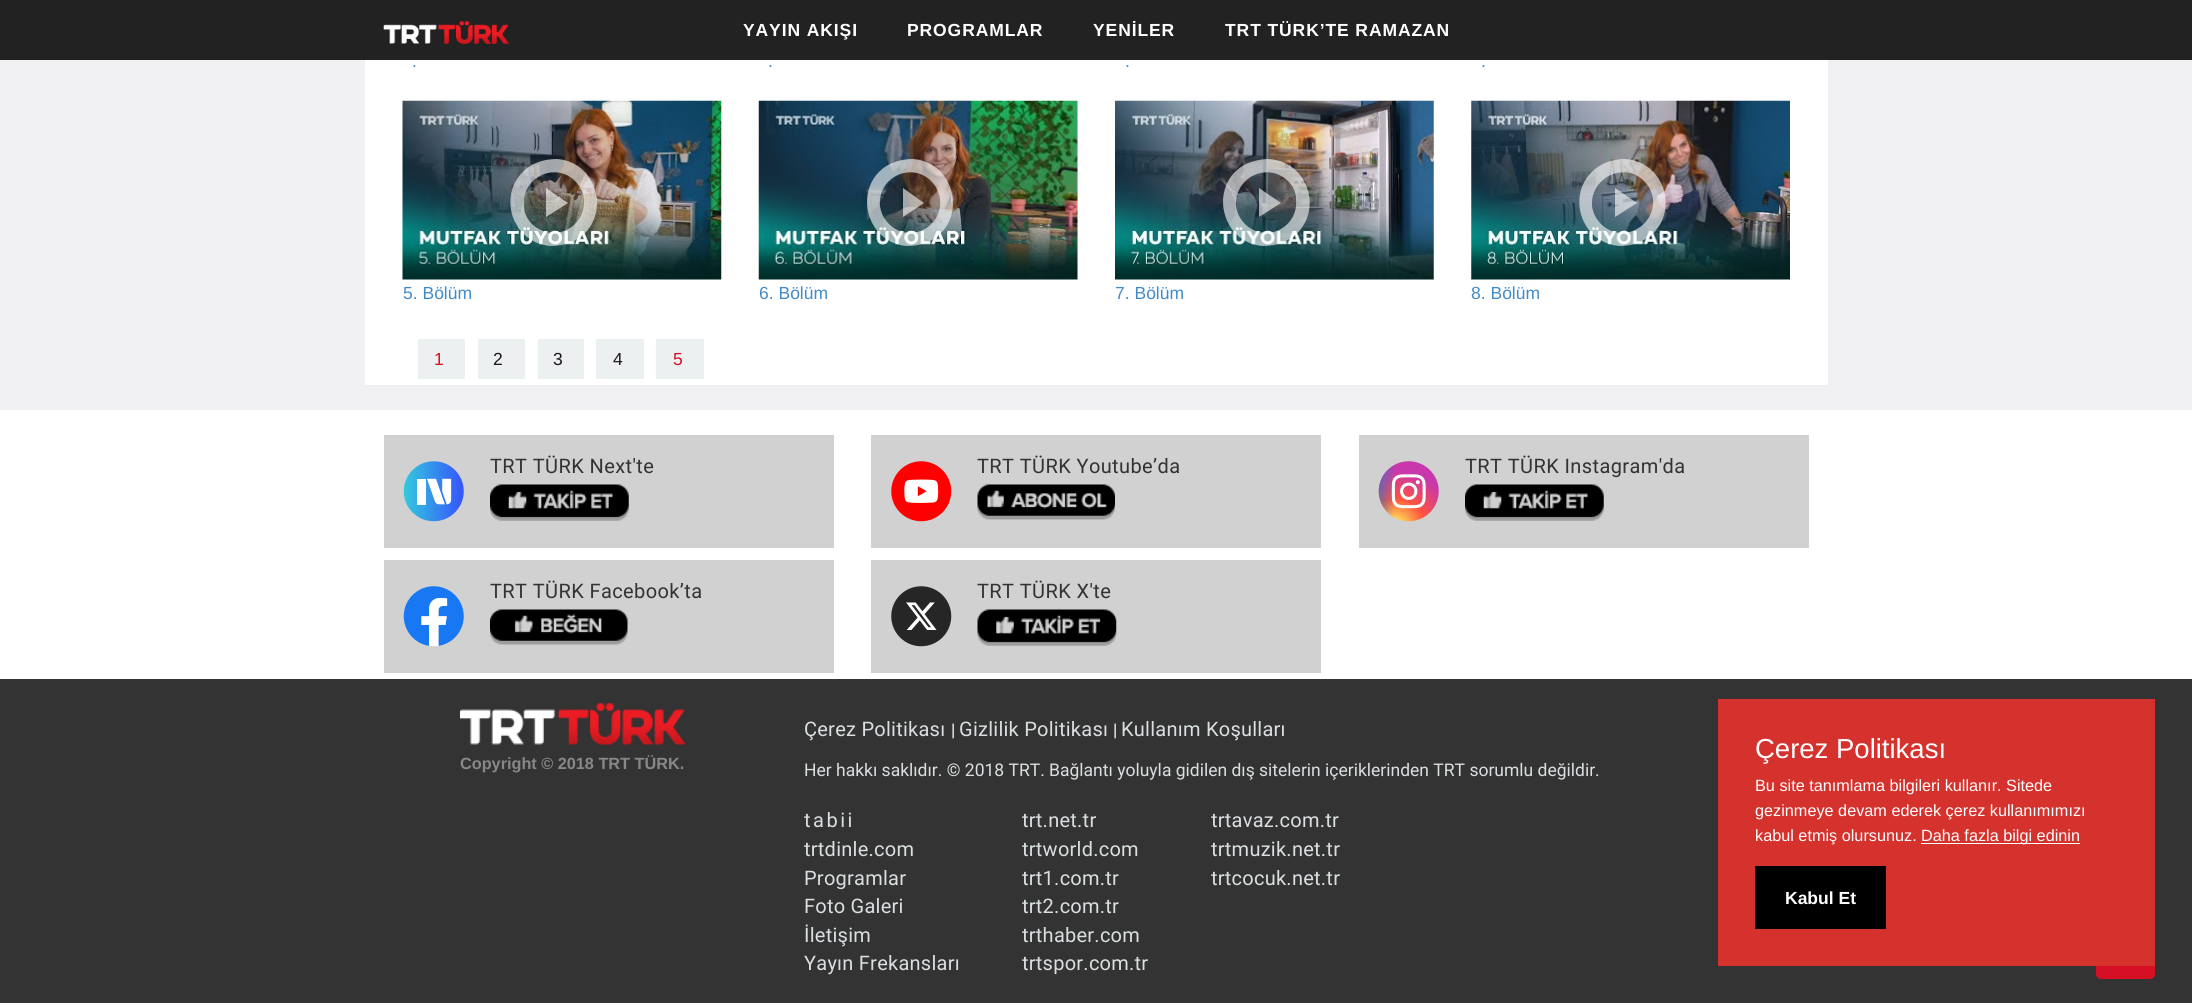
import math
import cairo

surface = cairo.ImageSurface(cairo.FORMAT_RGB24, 2192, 1003)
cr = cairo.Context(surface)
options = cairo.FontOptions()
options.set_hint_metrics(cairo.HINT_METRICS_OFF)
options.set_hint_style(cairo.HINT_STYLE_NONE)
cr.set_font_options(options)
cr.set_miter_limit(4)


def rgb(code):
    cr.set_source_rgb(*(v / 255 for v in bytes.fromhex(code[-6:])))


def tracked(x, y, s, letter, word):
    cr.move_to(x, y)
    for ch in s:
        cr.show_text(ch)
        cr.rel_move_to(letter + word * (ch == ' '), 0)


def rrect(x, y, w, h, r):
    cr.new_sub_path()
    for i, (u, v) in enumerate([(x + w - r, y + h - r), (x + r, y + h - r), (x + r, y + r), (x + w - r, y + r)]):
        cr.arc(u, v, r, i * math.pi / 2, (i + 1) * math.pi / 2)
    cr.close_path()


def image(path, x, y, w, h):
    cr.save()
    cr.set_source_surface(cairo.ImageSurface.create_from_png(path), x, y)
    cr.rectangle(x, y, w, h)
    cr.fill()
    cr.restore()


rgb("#f0f0f2")
cr.paint()
rgb("#222222")
cr.rectangle(0, 0, 2192, 60)
cr.fill()
image("img/1.png", 383, 21, 126, 23)
rgb("#ffffff")
cr.rectangle(365, 60, 1463, 325)
cr.fill()
image("img/2.png", 402, 100, 320, 180)
cr.set_source_rgba(1, 1, 1, 0.6)
cr.new_path()
cr.move_to(532, 165)
cr.curve_to(539, 161, 548, 159, 557, 159)
cr.curve_to(599, 162, 612, 219, 576, 240)
cr.curve_to(568, 244, 559, 246, 551, 246)
cr.curve_to(508, 243, 495, 186, 532, 165)
cr.close_path()
cr.move_to(575, 181)
cr.curve_to(555, 161, 521, 178, 524, 206)
cr.curve_to(524, 213, 527, 219, 532, 224)
cr.curve_to(553, 244, 586, 228, 584, 199)
cr.curve_to(583, 192, 580, 186, 575, 181)
cr.close_path()
cr.move_to(568, 203)
cr.line_to(546, 217)
cr.line_to(546, 188)
cr.close_path()
cr.fill()
image("img/3.png", 758, 100, 320, 180)
cr.new_path()
cr.move_to(888, 165)
cr.curve_to(896, 161, 904, 159, 913, 159)
cr.curve_to(955, 162, 968, 219, 932, 240)
cr.curve_to(924, 244, 916, 246, 907, 246)
cr.curve_to(865, 243, 852, 186, 888, 165)
cr.close_path()
cr.move_to(931, 181)
cr.curve_to(911, 161, 877, 178, 880, 206)
cr.curve_to(881, 213, 884, 219, 889, 224)
cr.curve_to(909, 244, 943, 228, 940, 199)
cr.curve_to(939, 192, 936, 186, 931, 181)
cr.close_path()
cr.move_to(924, 203)
cr.line_to(903, 217)
cr.line_to(903, 188)
cr.close_path()
cr.fill()
image("img/4.png", 1115, 100, 319, 180)
cr.new_path()
cr.move_to(1244, 165)
cr.curve_to(1252, 161, 1261, 159, 1269, 159)
cr.curve_to(1312, 162, 1325, 219, 1288, 240)
cr.curve_to(1281, 244, 1272, 246, 1263, 246)
cr.curve_to(1221, 243, 1208, 186, 1244, 165)
cr.close_path()
cr.move_to(1288, 181)
cr.curve_to(1267, 161, 1234, 178, 1236, 206)
cr.curve_to(1237, 213, 1240, 219, 1245, 224)
cr.curve_to(1265, 244, 1299, 228, 1296, 199)
cr.curve_to(1296, 192, 1293, 186, 1288, 181)
cr.close_path()
cr.move_to(1281, 203)
cr.line_to(1259, 217)
cr.line_to(1259, 188)
cr.close_path()
cr.fill()
image("img/5.png", 1471, 100, 319, 180)
cr.new_path()
cr.move_to(1601, 165)
cr.curve_to(1608, 161, 1617, 159, 1625, 159)
cr.curve_to(1668, 162, 1681, 219, 1644, 240)
cr.curve_to(1637, 244, 1628, 246, 1620, 246)
cr.curve_to(1577, 243, 1564, 186, 1601, 165)
cr.close_path()
cr.move_to(1644, 181)
cr.curve_to(1624, 161, 1590, 178, 1592, 206)
cr.curve_to(1593, 213, 1596, 219, 1601, 224)
cr.curve_to(1621, 244, 1655, 228, 1653, 199)
cr.curve_to(1652, 192, 1649, 186, 1644, 181)
cr.close_path()
cr.move_to(1637, 203)
cr.line_to(1615, 217)
cr.line_to(1615, 188)
cr.close_path()
cr.fill()
for x, y, w, h, color in [
    (418, 339, 47, 40, "#ecf0f1"),
    (478, 339, 47, 40, "#ecf0f1"),
    (538, 339, 46, 40, "#ecf0f1"),
    (596, 339, 48, 40, "#ecf0f1"),
    (656, 339, 48, 40, "#ecf0f1"),
    (0, 410, 2192, 269, "#ffffff"),
    (384, 435, 450, 113, "#d1d1d1"),
]:
    rgb(color)
    cr.rectangle(x, y, w, h)
    cr.fill()
image("img/6.png", 403, 461, 61, 61)
image("img/7.png", 490, 484, 139, 37)
cr.rectangle(384, 560, 450, 113)
cr.fill()
image("img/8.png", 403, 586, 61, 61)
image("img/9.png", 490, 609, 138, 36)
cr.rectangle(871, 435, 450, 113)
cr.fill()
image("img/10.png", 891, 461, 61, 61)
image("img/11.png", 977, 484, 138, 36)
cr.rectangle(871, 560, 450, 113)
cr.fill()
image("img/12.png", 891, 586, 61, 61)
image("img/13.png", 977, 609, 140, 37)
cr.rectangle(1359, 435, 450, 113)
cr.fill()
image("img/14.png", 1378, 461, 61, 61)
image("img/15.png", 1465, 484, 139, 37)
rgb("#333333")
cr.rectangle(0, 679, 2192, 324)
cr.fill()
image("img/16.png", 460, 703, 225, 42)
rgb("#d61024")
rrect(2096, 909, 59, 70, 5)
cr.fill()
for x, y, w, h, color in [
    (1718, 699, 437, 267, "#d6322d"),
    (1921, 843, 159, 1, "#ffffff"),
    (1755, 866, 131, 63, "#000000"),
]:
    rgb(color)
    cr.rectangle(x, y, w, h)
    cr.fill()
cr.select_font_face("Liberation Sans", cairo.FONT_SLANT_NORMAL, cairo.FONT_WEIGHT_BOLD)
cr.set_font_size(17.5)
rgb("#ffffff")
for x, y, s in [
    (743, 36, "YAYIN AKIŞI"),
    (907, 36, "PROGRAMLAR"),
    (1093, 36, "YENİLER"),
    (1225, 36, "TRT TÜRK’TE RAMAZAN"),
]:
    tracked(x, y, s, 0.9, 0)
cr.select_font_face("Liberation Sans")
rgb("#428bca")
for x, y, s in [
    (412, 67, "."),
    (768, 67, "."),
    (1125, 67, "."),
    (1481, 67, "."),
    (403, 299, "5. Bölüm"),
    (759, 299, "6. Bölüm"),
    (1115, 299, "7. Bölüm"),
    (1471, 299, "8. Bölüm"),
]:
    cr.move_to(x, y)
    cr.show_text(s)
rgb("#d61024")
cr.move_to(434, 365)
cr.show_text("1")
rgb("#1a1919")
for x, y, s in [
    (493, 365, "2"),
    (553, 365, "3"),
    (613, 365, "4"),
]:
    cr.move_to(x, y)
    cr.show_text(s)
rgb("#d61024")
cr.move_to(673, 365)
cr.show_text("5")
cr.select_font_face("Roboto")
cr.set_font_size(20)
rgb("#333333")
for x, y, s in [
    (490, 473, "TRT TÜRK Next'te"),
    (490, 598, "TRT TÜRK Facebook’ta"),
    (977, 473, "TRT TÜRK Youtube’da"),
    (977, 598, "TRT TÜRK X'te"),
    (1465, 473, "TRT TÜRK Instagram'da"),
]:
    tracked(x, y, s, 0.4, 0)
cr.select_font_face("Liberation Sans", cairo.FONT_SLANT_NORMAL, cairo.FONT_WEIGHT_BOLD)
cr.set_font_size(16.25)
rgb("#888888")
cr.move_to(460, 769)
cr.show_text("Copyright © 2018 TRT TÜRK.")
cr.select_font_face("Roboto")
cr.set_font_size(20)
rgb("#dadfe1")
tracked(804, 736, "Çerez Politikası", 0.25, 0)
cr.set_font_size(17.5)
rgb("#ffffff")
cr.move_to(951, 736)
cr.show_text("|")
cr.set_font_size(20)
rgb("#dadfe1")
tracked(959, 736, "Gizlilik Politikası", 0.25, 0)
cr.set_font_size(17.5)
rgb("#ffffff")
cr.move_to(1113, 736)
cr.show_text("|")
cr.set_font_size(20)
rgb("#dadfe1")
tracked(1121, 736, "Kullanım Koşulları", 0.25, 0)
cr.set_font_size(17.5)
cr.move_to(804, 776)
cr.show_text("Her hakkı saklıdır. © 2018 TRT. Bağlantı yoluyla gidilen dış sitelerin içeriklerinden TRT sorumlu değildir.")
cr.set_font_size(20)
tracked(804, 827, "tabii", 2.5, 0)
for x, y, s in [
    (804, 856, "trtdinle.com"),
    (804, 885, "Programlar"),
    (804, 913, "Foto Galeri"),
    (804, 942, "İletişim"),
    (804, 970, "Yayın Frekansları"),
    (1022, 827, "trt.net.tr"),
    (1022, 856, "trtworld.com"),
    (1022, 885, "trt1.com.tr"),
    (1022, 913, "trt2.com.tr"),
    (1022, 942, "trthaber.com"),
    (1022, 970, "trtspor.com.tr"),
    (1211, 827, "trtavaz.com.tr"),
    (1211, 856, "trtmuzik.net.tr"),
    (1211, 885, "trtcocuk.net.tr"),
]:
    tracked(x, y, s, 0.25, 0)
cr.select_font_face("Liberation Sans")
cr.set_font_size(27.5)
rgb("#ffffff")
cr.move_to(1755, 758)
cr.show_text("Çerez Politikası")
cr.set_font_size(16.25)
for x, y, s in [
    (1755, 791, "Bu site tanımlama bilgileri kullanır. Sitede"),
    (1755, 816, "gezinmeye devam ederek çerez kullanımımızı"),
    (1755, 841, "kabul etmiş olursunuz."),
    (1921, 841, "Daha fazla bilgi edinin"),
]:
    cr.move_to(x, y)
    cr.show_text(s)
cr.select_font_face("Liberation Sans", cairo.FONT_SLANT_NORMAL, cairo.FONT_WEIGHT_BOLD)
cr.set_font_size(17.5)
cr.move_to(1785, 904)
cr.show_text("Kabul Et")
surface.write_to_png("page.png")
